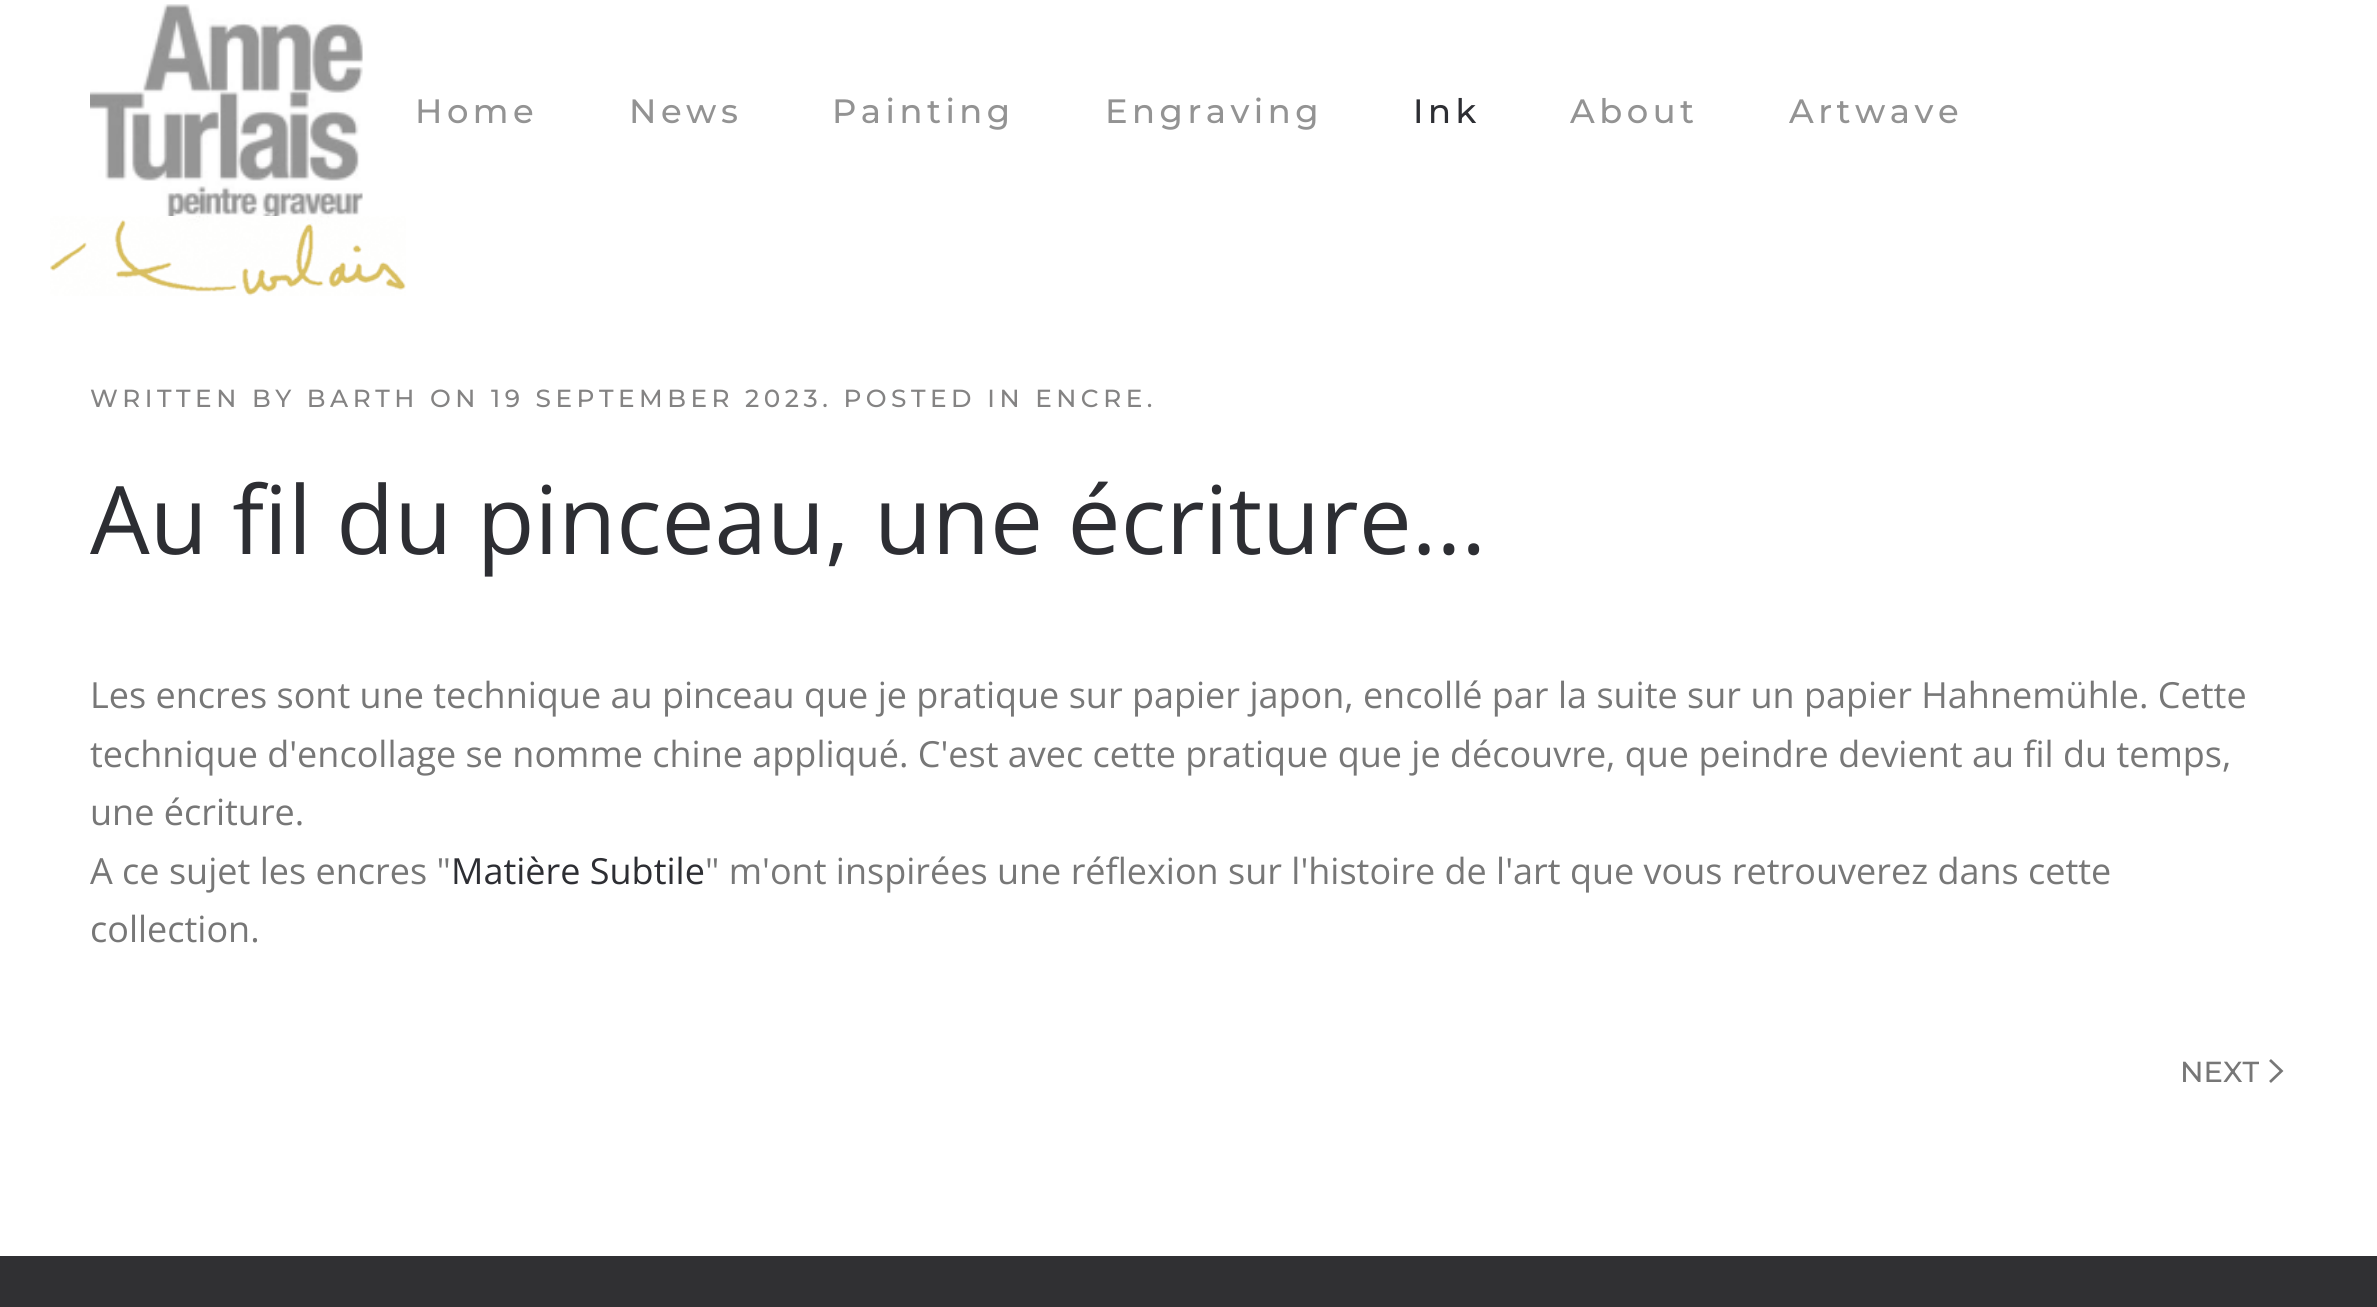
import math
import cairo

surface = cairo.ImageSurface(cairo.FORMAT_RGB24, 2377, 1307)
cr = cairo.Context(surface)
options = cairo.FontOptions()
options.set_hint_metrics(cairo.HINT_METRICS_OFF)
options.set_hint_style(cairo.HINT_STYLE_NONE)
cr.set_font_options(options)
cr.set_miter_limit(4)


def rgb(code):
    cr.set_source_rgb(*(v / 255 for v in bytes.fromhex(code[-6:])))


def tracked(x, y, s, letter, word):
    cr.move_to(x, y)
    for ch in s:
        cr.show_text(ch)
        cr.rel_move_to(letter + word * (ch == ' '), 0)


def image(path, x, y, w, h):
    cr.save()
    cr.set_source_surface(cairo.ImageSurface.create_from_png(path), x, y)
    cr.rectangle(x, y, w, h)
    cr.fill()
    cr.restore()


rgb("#ffffff")
cr.paint()
image("img/1.png", 90, 4, 273, 212)
image("img/2.png", 50, 216, 356, 80)
cr.new_path()
cr.move_to(2270, 1060)
cr.line_to(2281.5, 1071)
cr.line_to(2270, 1082)
rgb("#777777")
cr.set_line_width(2.7)
cr.stroke()
rgb("#303033")
cr.rectangle(0, 1256, 2377, 51)
cr.fill()
cr.select_font_face("Montserrat Thin")
cr.set_font_size(33.75)
rgb("#939393")
for x, y, s in [
    (415, 123, "Home"),
    (629, 123, "News"),
    (832, 123, "Painting"),
    (1105, 123, "Engraving"),
]:
    tracked(x, y, s, 4.5, 0)
rgb("#2d2e33")
tracked(1413, 123, "Ink", 4.5, 0)
rgb("#939393")
tracked(1570, 123, "About", 4.5, 0)
tracked(1789, 123, "Artwave", 4.5, 0)
cr.set_font_size(24.75)
rgb("#848383")
tracked(90, 407, "WRITTEN BY BARTH ON 19 SEPTEMBER 2023. POSTED IN ENCRE.", 4.5, 0)
cr.select_font_face("Open Sans")
cr.set_font_size(94.5)
rgb("#2d2e33")
cr.move_to(90, 554)
cr.show_text("Au fil du pinceau, une écriture...")
cr.set_font_size(36)
rgb("#777777")
for x, y, s in [
    (90, 708, "Les encres sont une technique au pinceau que je pratique sur papier japon, encollé par la suite sur un papier Hahnemühle. Cette"),
    (90, 767, "technique d'encollage se nomme chine appliqué. C'est avec cette pratique que je découvre, que peindre devient au fil du temps,"),
    (90, 825, "une écriture."),
    (90, 884, "A ce sujet les encres \""),
]:
    cr.move_to(x, y)
    cr.show_text(s)
rgb("#2d2e33")
cr.move_to(451, 884)
cr.show_text("Matière Subtile")
rgb("#777777")
cr.move_to(705, 884)
cr.show_text("\" m'ont inspirées une réflexion sur l'histoire de l'art que vous retrouverez dans cette")
cr.move_to(90, 942)
cr.show_text("collection.")
cr.select_font_face("Montserrat Thin")
cr.set_font_size(29)
cr.move_to(2180, 1082)
cr.show_text("NEXT")
surface.write_to_png("page.png")
